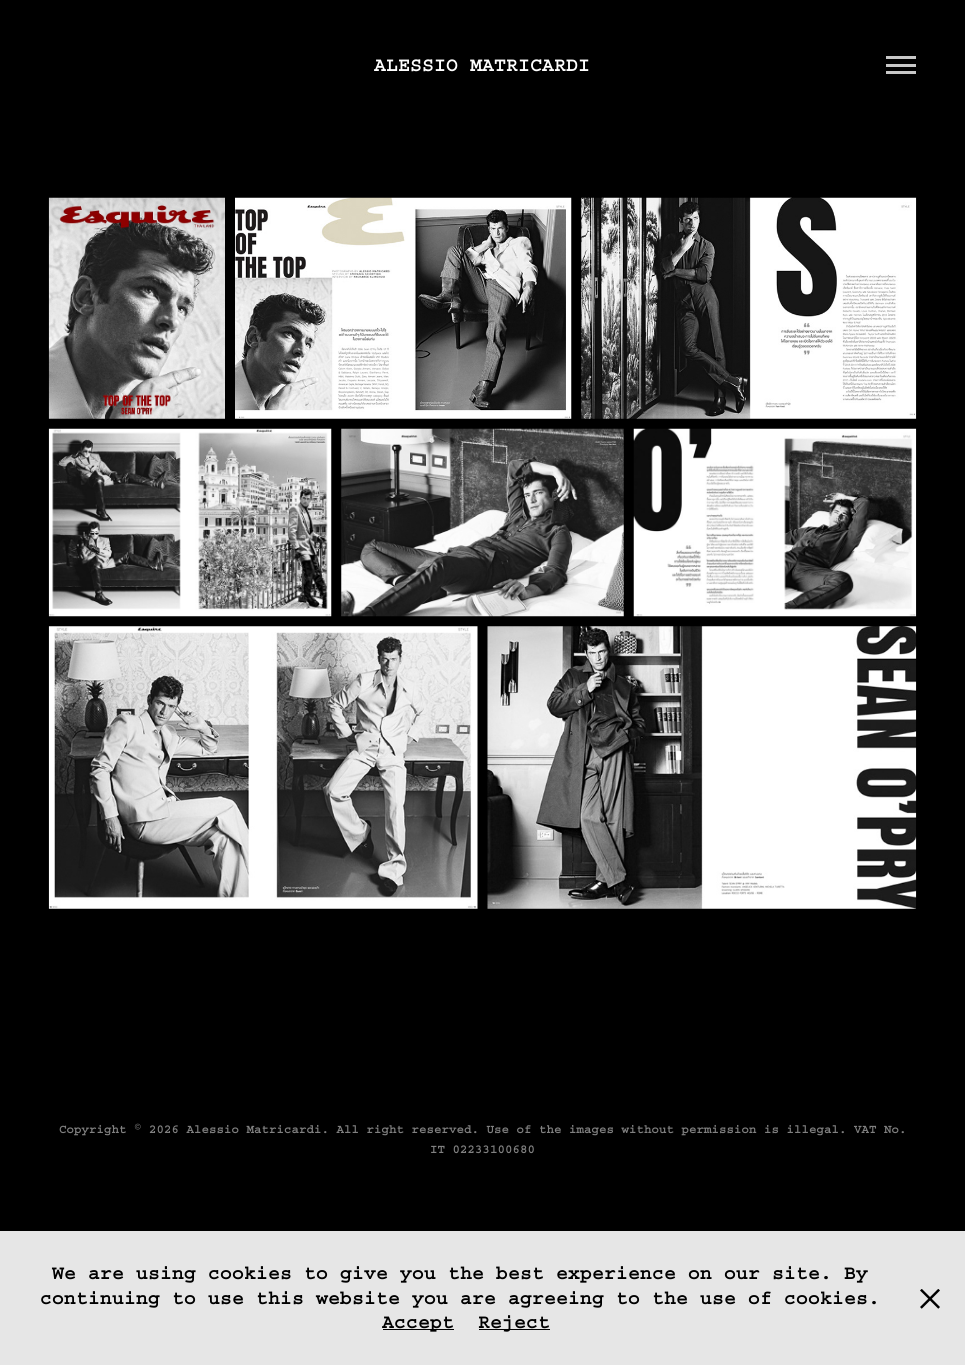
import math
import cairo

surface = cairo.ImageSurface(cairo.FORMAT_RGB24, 965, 1365)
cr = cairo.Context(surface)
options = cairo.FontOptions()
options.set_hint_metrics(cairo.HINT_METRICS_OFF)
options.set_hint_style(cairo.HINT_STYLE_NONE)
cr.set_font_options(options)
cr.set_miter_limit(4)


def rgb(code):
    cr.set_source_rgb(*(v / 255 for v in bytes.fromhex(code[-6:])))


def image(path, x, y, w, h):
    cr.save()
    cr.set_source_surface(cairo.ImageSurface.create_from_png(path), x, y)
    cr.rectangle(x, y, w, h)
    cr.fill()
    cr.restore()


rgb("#000000")
cr.paint()
for x, y, w, h, color in [
    (886, 56, 30, 3, "#c8c8c8"),
    (886, 64, 30, 3, "#c8c8c8"),
    (886, 71, 30, 3, "#c8c8c8"),
]:
    rgb(color)
    cr.rectangle(x, y, w, h)
    cr.fill()
image("img/1.png", 48, 197, 177, 222)
image("img/2.png", 235, 197, 337, 222)
image("img/3.png", 581, 197, 336, 222)
image("img/4.png", 48, 428, 284, 189)
image("img/5.png", 341, 428, 283, 189)
image("img/6.png", 633, 428, 284, 189)
image("img/7.png", 48, 626, 430, 283)
image("img/8.png", 487, 626, 430, 283)
for x, y, w, h, color in [
    (0, 1231, 965, 134, "#e6e6e6"),
    (383, 1329, 71, 1, "#000000"),
    (479, 1329, 71, 1, "#000000"),
]:
    rgb(color)
    cr.rectangle(x, y, w, h)
    cr.fill()
image("img/9.png", 920, 1289, 20, 20)
cr.select_font_face("Courier", cairo.FONT_SLANT_NORMAL, cairo.FONT_WEIGHT_BOLD)
cr.set_font_size(20)
rgb("#ffffff")
cr.move_to(374, 71)
cr.show_text("ALESSIO MATRICARDI")
cr.set_font_size(12.5)
rgb("#808080")
cr.move_to(59, 1133)
cr.show_text("Copyright © 2026 Alessio Matricardi. All right reserved. Use of the images without permission is illegal. VAT No.")
cr.move_to(430, 1153)
cr.show_text("IT 02233100680")
cr.set_font_size(20)
rgb("#000000")
for x, y, s in [
    (52, 1279, "We are using cookies to give you the best experience on our site. By"),
    (40, 1304, "continuing to use this website you are agreeing to the use of cookies."),
    (382, 1328, "Accept"),
    (478, 1328, "Reject"),
]:
    cr.move_to(x, y)
    cr.show_text(s)
surface.write_to_png("page.png")
